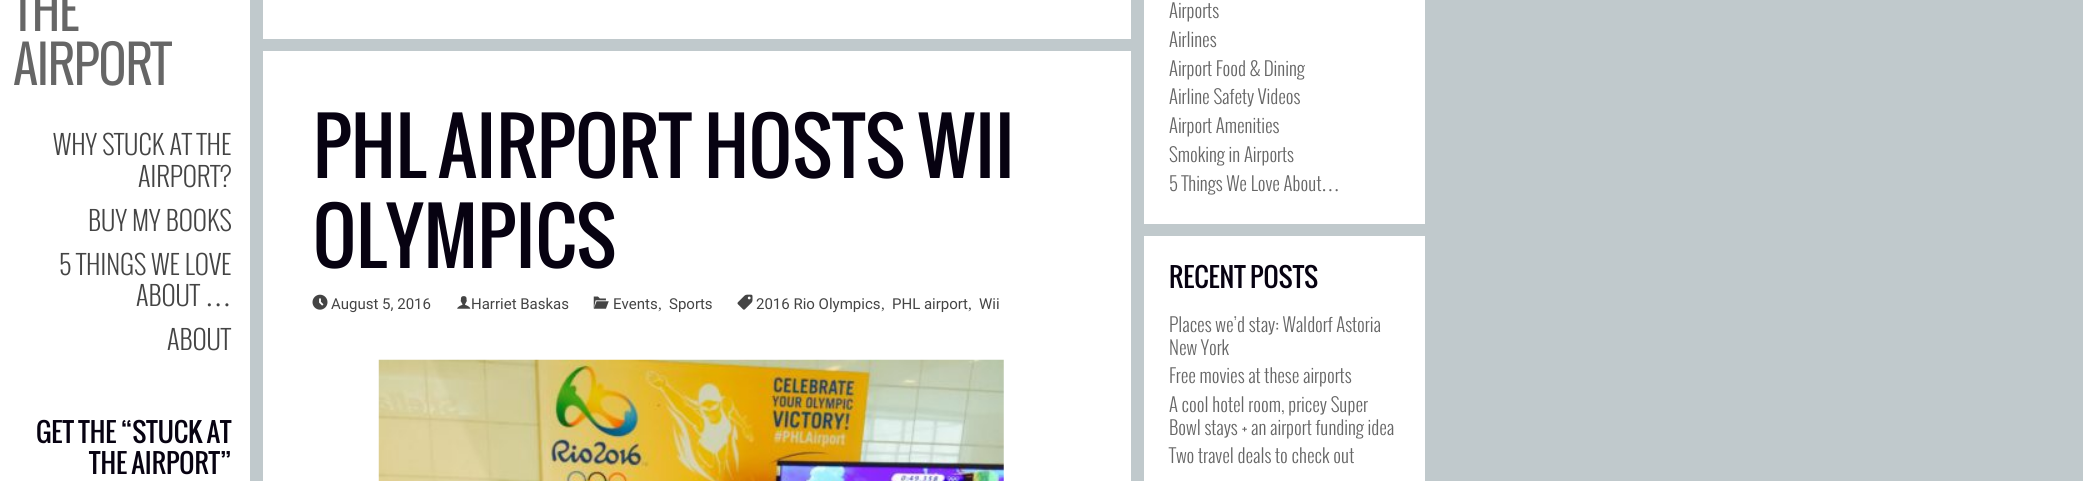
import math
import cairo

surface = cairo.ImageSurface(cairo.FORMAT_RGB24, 2083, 481)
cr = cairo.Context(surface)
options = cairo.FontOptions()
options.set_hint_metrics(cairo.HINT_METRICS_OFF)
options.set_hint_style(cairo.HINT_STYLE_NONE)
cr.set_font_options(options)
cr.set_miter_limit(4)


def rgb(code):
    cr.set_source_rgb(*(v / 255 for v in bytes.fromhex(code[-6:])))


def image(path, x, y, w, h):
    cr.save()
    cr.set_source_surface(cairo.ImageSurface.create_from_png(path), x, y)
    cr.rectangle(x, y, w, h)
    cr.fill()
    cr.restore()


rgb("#c0c9cc")
cr.paint()
for x, y, w, h, color in [
    (0, 0, 250, 481, "#ffffff"),
    (263, 0, 868, 39, "#ffffff"),
    (263, 51, 868, 430, "#ffffff"),
]:
    rgb(color)
    cr.rectangle(x, y, w, h)
    cr.fill()
image("img/1.png", 312, 294, 16, 16)
image("img/2.png", 457, 296, 14, 13)
image("img/3.png", 593, 296, 16, 13)
image("img/4.png", 737, 294, 16, 16)
image("img/5.png", 378, 359, 626, 122)
cr.rectangle(1144, 0, 281, 224)
cr.fill()
cr.rectangle(1144, 236, 281, 245)
cr.fill()
cr.select_font_face("Oswald", cairo.FONT_SLANT_NORMAL, cairo.FONT_WEIGHT_BOLD)
cr.set_font_size(50)
rgb("#666666")
cr.move_to(13, 31)
cr.show_text("THE")
cr.move_to(13, 85)
cr.show_text("AIRPORT")
cr.select_font_face("Oswald Light")
cr.set_font_size(26.25)
rgb("#444444")
for x, y, s in [
    (53, 155, "WHY STUCK AT THE"),
    (138, 187, "AIRPORT?"),
    (88, 231, "BUY MY BOOKS"),
    (59, 275, "5 THINGS WE LOVE"),
    (136, 306, "ABOUT"),
]:
    cr.move_to(x, y)
    cr.show_text(s)
cr.select_font_face("Liberation Serif")
cr.move_to(205, 306)
cr.show_text("…")
cr.select_font_face("Oswald Light")
cr.move_to(167, 350)
cr.show_text("ABOUT")
cr.select_font_face("Oswald")
rgb("#070211")
cr.move_to(36, 443)
cr.show_text("GET THE “STUCK AT")
cr.move_to(89, 474)
cr.show_text("THE AIRPORT”")
cr.set_font_size(75)
cr.move_to(313, 178)
cr.show_text("PHL AIRPORT HOSTS WII")
cr.move_to(313, 268)
cr.show_text("OLYMPICS")
cr.select_font_face("Roboto")
cr.set_font_size(15)
rgb("#444444")
for x, y, s in [
    (331, 309, "August 5, 2016"),
    (471, 309, "Harriet Baskas"),
    (613, 309, "Events"),
    (669, 309, "Sports"),
    (756, 309, "2016 Rio Olympics"),
    (892, 309, "PHL airport"),
    (979, 309, "Wii"),
]:
    cr.move_to(x, y)
    cr.show_text(s)
cr.select_font_face("Liberation Serif")
for x, y, s in [
    (658, 309, ","),
    (881, 309, ","),
    (968, 309, ","),
]:
    cr.move_to(x, y)
    cr.show_text(s)
cr.select_font_face("Oswald Light")
cr.set_font_size(18.75)
rgb("#666666")
for x, y, s in [
    (1169, 18, "Airports"),
    (1169, 47, "Airlines"),
    (1169, 76, "Airport Food & Dining"),
    (1169, 104, "Airline Safety Videos"),
    (1169, 133, "Airport Amenities"),
    (1169, 162, "Smoking in Airports"),
    (1169, 191, "5 Things We Love About"),
]:
    cr.move_to(x, y)
    cr.show_text(s)
cr.select_font_face("Liberation Serif")
cr.move_to(1321, 191)
cr.show_text("…")
cr.select_font_face("Oswald")
cr.set_font_size(26.25)
rgb("#070211")
cr.move_to(1169, 288)
cr.show_text("RECENT POSTS")
cr.select_font_face("Oswald Light")
cr.set_font_size(18.75)
rgb("#666666")
for x, y, s in [
    (1169, 332, "Places we’d stay: Waldorf Astoria"),
    (1169, 355, "New York"),
    (1169, 383, "Free movies at these airports"),
    (1169, 412, "A cool hotel room, pricey Super"),
    (1169, 435, "Bowl stays + an airport funding idea"),
    (1169, 463, "Two travel deals to check out"),
]:
    cr.move_to(x, y)
    cr.show_text(s)
surface.write_to_png("page.png")
